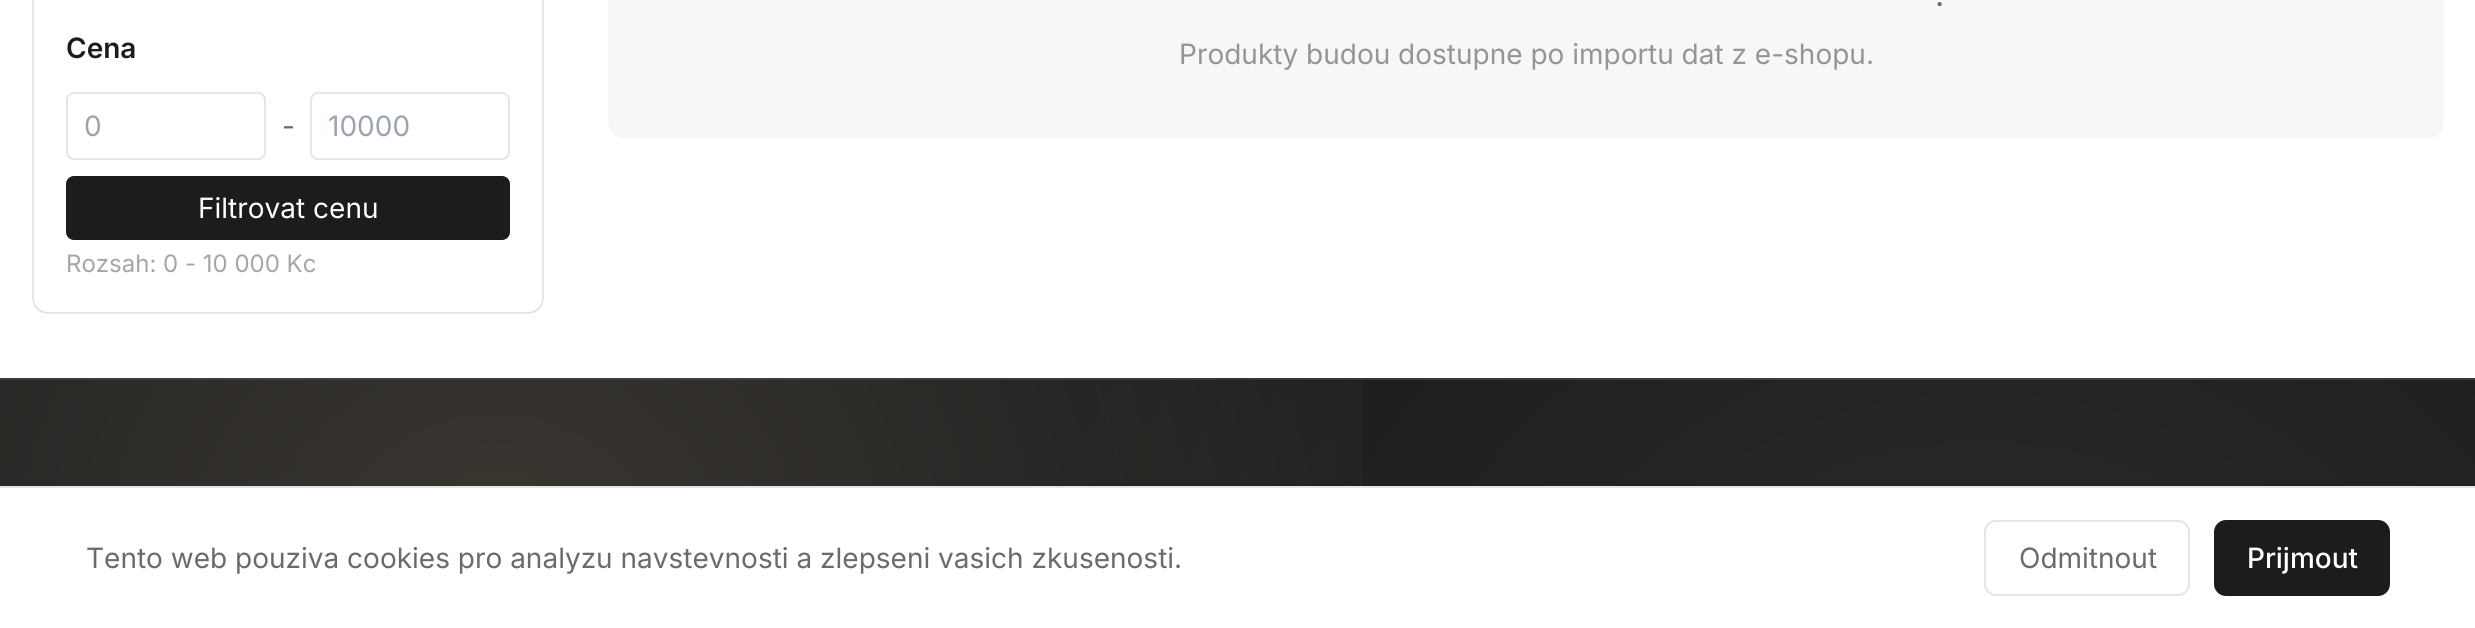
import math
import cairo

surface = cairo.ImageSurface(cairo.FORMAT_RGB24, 2475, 628)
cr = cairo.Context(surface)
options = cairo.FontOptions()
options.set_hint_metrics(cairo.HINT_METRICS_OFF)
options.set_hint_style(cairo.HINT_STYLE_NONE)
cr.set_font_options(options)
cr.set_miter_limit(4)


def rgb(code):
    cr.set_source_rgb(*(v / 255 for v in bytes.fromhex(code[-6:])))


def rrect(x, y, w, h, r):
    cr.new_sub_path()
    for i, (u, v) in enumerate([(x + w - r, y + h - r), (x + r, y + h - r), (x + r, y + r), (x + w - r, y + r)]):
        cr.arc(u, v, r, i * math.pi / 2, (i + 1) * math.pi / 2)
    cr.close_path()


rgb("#ffffff")
cr.paint()
rrect(33, -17, 510, 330, 15)
rgb("#e5e5e5")
cr.stroke()
rrect(67, 93, 198, 66, 7)
cr.stroke()
rrect(311, 93, 198, 66, 7)
cr.stroke()
rgb("#1c1c1e")
rrect(66, 176, 444, 64, 8)
cr.fill()
rgb("#f7f7f7")
rrect(608, -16, 1836, 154, 16)
cr.fill()
gradient = cairo.RadialGradient(1981, 168, 0, 1981, 168, 2042)
gradient.add_color_stop_rgba(0, 0.271, 0.263, 0.247, 1)
gradient.add_color_stop_rgba(0.5, 0.192, 0.192, 0.196, 1)
cr.set_source(gradient)
cr.rectangle(0, 378, 2475, 2)
cr.fill()
gradient = cairo.RadialGradient(1981, 874, 0, 1981, 874, 2042)
gradient.add_color_stop_rgba(0, 0.188, 0.18, 0.165, 1)
gradient.add_color_stop_rgba(0.5, 0.102, 0.102, 0.106, 1)
cr.set_source(gradient)
cr.rectangle(0, 380, 2475, 106)
cr.fill()
gradient = cairo.RadialGradient(495, -114, 0, 495, -114, 2042)
gradient.add_color_stop_rgba(0, 0.965, 0.882, 0.729, 0.15)
gradient.add_color_stop_rgba(0.5, 0.965, 0.882, 0.729, 0)
cr.set_source(gradient)
cr.rectangle(0, 378, 1217, 2)
cr.fill()
gradient = cairo.RadialGradient(495, 592, 0, 495, 592, 2042)
gradient.add_color_stop_rgba(0, 0.961, 0.871, 0.698, 0.15)
gradient.add_color_stop_rgba(0.5, 0.961, 0.871, 0.698, 0)
cr.set_source(gradient)
cr.rectangle(0, 380, 1363, 106)
cr.fill()
rgb("#e5e5e5")
cr.rectangle(0, 486, 2475, 2)
cr.fill()
rrect(1985, 521, 204, 74, 11)
cr.stroke()
rgb("#1c1c1e")
rrect(2214, 520, 176, 76, 12)
cr.fill()
cr.select_font_face("Inter SemiBold")
cr.set_font_size(28)
cr.move_to(66, 58)
cr.show_text("Cena")
cr.select_font_face("Inter")
rgb("#9ca3af")
cr.move_to(84, 136)
cr.show_text("0")
rgb("#6b6b6b")
cr.move_to(282, 136)
cr.show_text("-")
rgb("#9ca3af")
cr.move_to(328, 136)
cr.show_text("10000")
rgb("#ffffff")
cr.move_to(198, 218)
cr.show_text("Filtrovat cenu")
cr.set_font_size(24)
rgb("#a6a6a6")
cr.move_to(66, 272)
cr.show_text("Rozsah: 0 - 10 000 Kc")
cr.set_font_size(32)
rgb("#6b6b6b")
cr.move_to(1935, 6)
cr.show_text(".")
cr.set_font_size(28)
rgb("#959595")
cr.move_to(1179, 64)
cr.show_text("Produkty budou dostupne po importu dat z e-shopu.")
rgb("#6b6b6b")
cr.move_to(86, 568)
cr.show_text("Tento web pouziva cookies pro analyzu navstevnosti a zlepseni vasich zkusenosti.")
cr.move_to(2019, 568)
cr.show_text("Odmitnout")
cr.select_font_face("Inter Medium")
rgb("#ffffff")
cr.move_to(2247, 568)
cr.show_text("Prijmout")
surface.write_to_png("page.png")
